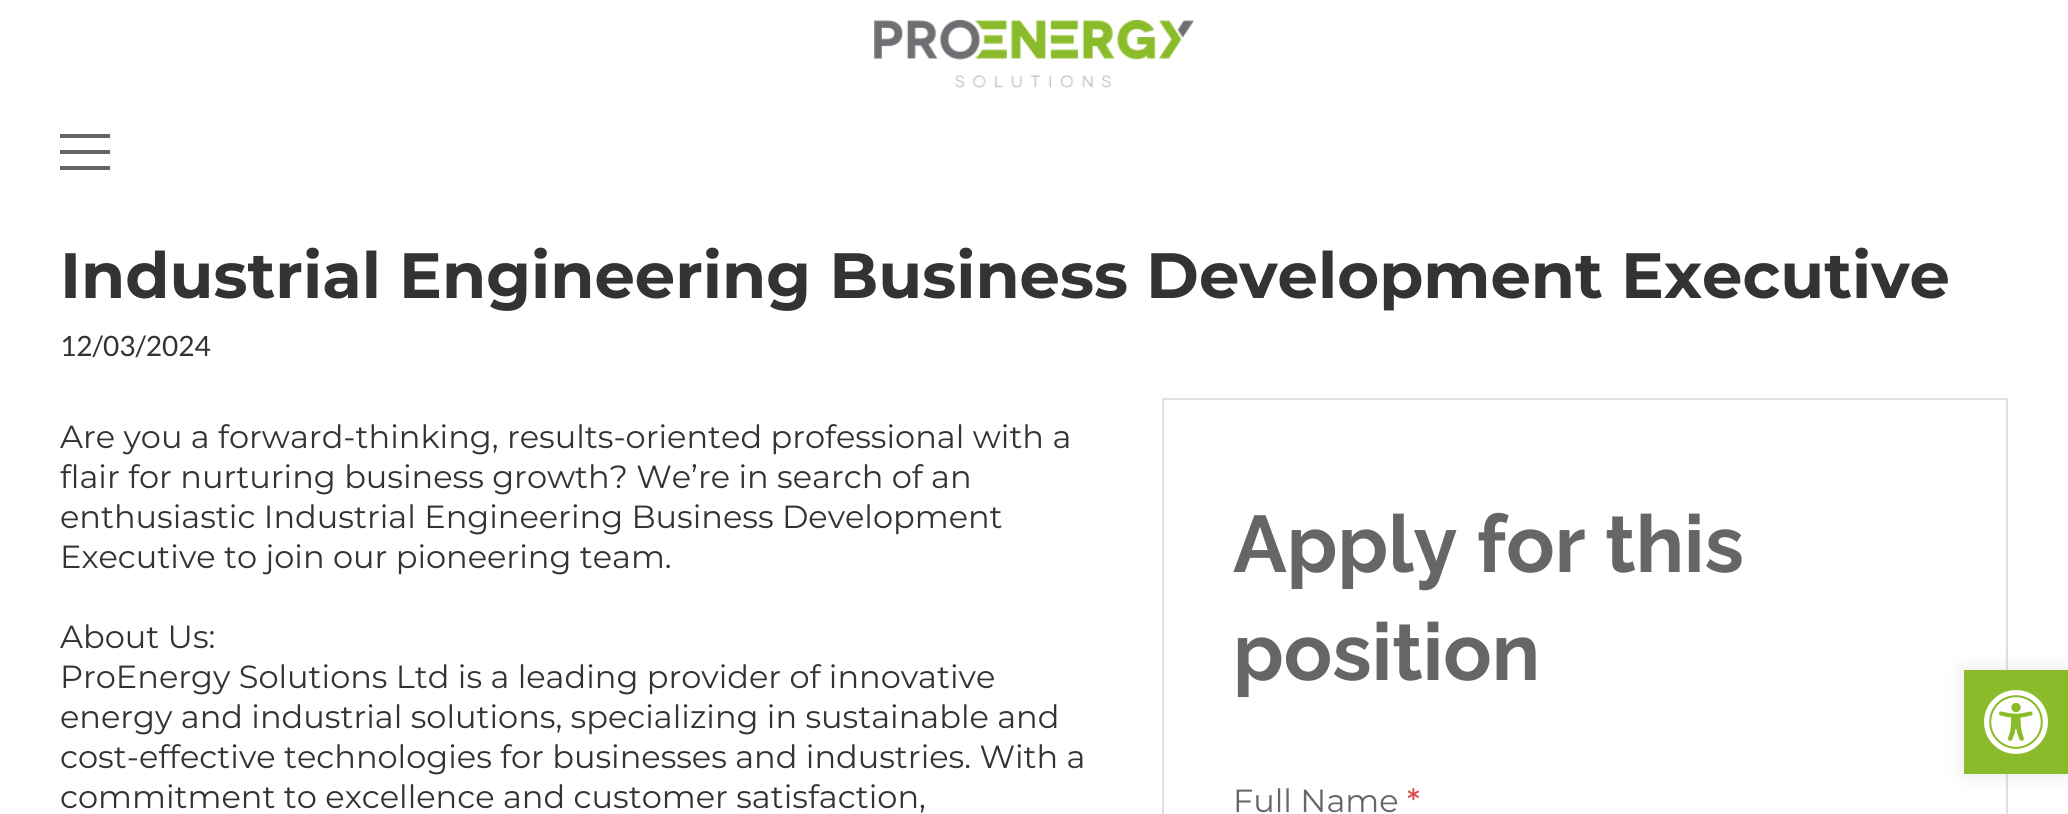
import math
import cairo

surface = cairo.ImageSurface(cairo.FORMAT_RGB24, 2068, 814)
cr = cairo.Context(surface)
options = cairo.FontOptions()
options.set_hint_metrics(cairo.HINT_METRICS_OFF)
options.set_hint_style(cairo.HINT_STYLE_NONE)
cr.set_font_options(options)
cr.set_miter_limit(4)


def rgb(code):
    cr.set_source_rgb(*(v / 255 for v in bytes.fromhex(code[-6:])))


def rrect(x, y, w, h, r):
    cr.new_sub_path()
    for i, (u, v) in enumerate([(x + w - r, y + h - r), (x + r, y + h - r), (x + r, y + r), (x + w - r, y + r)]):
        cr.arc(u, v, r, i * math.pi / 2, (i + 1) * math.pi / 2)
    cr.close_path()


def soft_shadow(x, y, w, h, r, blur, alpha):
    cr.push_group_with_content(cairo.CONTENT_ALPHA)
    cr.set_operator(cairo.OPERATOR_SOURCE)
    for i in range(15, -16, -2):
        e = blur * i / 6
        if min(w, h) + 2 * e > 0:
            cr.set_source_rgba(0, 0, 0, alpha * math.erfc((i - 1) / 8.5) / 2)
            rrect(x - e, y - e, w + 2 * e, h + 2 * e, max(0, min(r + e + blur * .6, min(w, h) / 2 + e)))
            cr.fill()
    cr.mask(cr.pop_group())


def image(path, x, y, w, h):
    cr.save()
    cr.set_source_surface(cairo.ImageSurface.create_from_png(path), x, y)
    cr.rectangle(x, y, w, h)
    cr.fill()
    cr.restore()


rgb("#ffffff")
cr.paint()
image("img/1.png", 874, 20, 320, 68)
for x, y, w, h, color in [
    (60, 134, 50, 4, "#666666"),
    (60, 150, 50, 4, "#666666"),
    (60, 166, 50, 4, "#666666"),
]:
    rgb(color)
    cr.rectangle(x, y, w, h)
    cr.fill()
cr.rectangle(1163, 399, 844, 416)
rgb("#dddfe3")
cr.stroke()
rgb("#000000")
soft_shadow(1964, 670, 104, 104, 0, 10, 0.1)
rgb("#8abb2a")
cr.rectangle(1964, 670, 104, 104)
cr.fill()
image("img/2.png", 1984, 690, 64, 64)
cr.select_font_face("Montserrat", cairo.FONT_SLANT_NORMAL, cairo.FONT_WEIGHT_BOLD)
cr.set_font_size(64)
rgb("#333333")
cr.move_to(60, 298)
cr.show_text("Industrial Engineering Business Development Executive")
cr.select_font_face("Lato")
cr.set_font_size(28)
cr.move_to(60, 356)
cr.show_text("12/03/2024")
cr.select_font_face("Montserrat")
cr.set_font_size(32)
for x, y, s in [
    (60, 448, "Are you a forward-thinking, results-oriented professional with a"),
    (60, 488, "flair for nurturing business growth? We’re in search of an"),
    (60, 528, "enthusiastic Industrial Engineering Business Development"),
    (60, 568, "Executive to join our pioneering team."),
    (60, 648, "About Us:"),
    (60, 688, "ProEnergy Solutions Ltd is a leading provider of innovative"),
    (60, 728, "energy and industrial solutions, specializing in sustainable and"),
    (60, 768, "cost-effective technologies for businesses and industries. With a"),
    (60, 808, "commitment to excellence and customer satisfaction,"),
]:
    cr.move_to(x, y)
    cr.show_text(s)
cr.select_font_face("Raleway", cairo.FONT_SLANT_NORMAL, cairo.FONT_WEIGHT_BOLD)
cr.set_font_size(80)
rgb("#666666")
cr.move_to(1233, 572)
cr.show_text("Apply for this")
cr.move_to(1233, 680)
cr.show_text("position")
cr.select_font_face("Montserrat")
cr.set_font_size(32)
cr.move_to(1233, 812)
cr.show_text("Full Name")
cr.select_font_face("Montserrat Medium")
rgb("#db4c4c")
cr.move_to(1407, 812)
cr.show_text("*")
surface.write_to_png("page.png")
